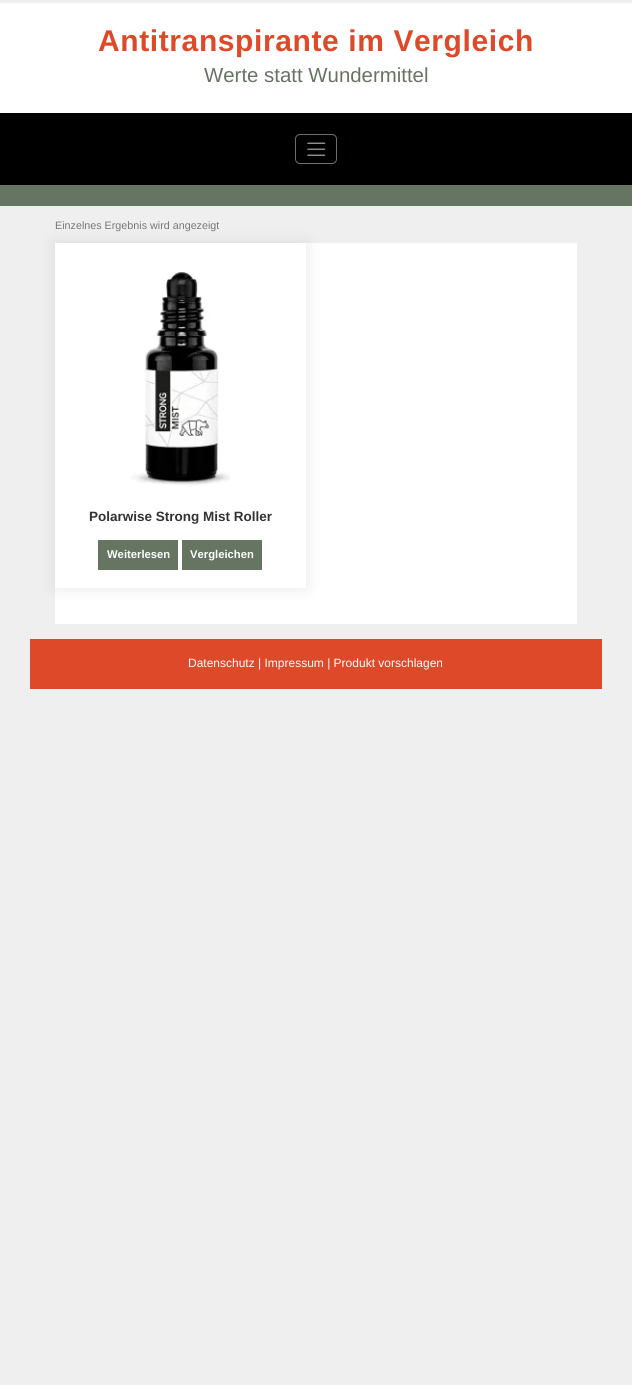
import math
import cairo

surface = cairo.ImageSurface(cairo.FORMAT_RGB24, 632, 1385)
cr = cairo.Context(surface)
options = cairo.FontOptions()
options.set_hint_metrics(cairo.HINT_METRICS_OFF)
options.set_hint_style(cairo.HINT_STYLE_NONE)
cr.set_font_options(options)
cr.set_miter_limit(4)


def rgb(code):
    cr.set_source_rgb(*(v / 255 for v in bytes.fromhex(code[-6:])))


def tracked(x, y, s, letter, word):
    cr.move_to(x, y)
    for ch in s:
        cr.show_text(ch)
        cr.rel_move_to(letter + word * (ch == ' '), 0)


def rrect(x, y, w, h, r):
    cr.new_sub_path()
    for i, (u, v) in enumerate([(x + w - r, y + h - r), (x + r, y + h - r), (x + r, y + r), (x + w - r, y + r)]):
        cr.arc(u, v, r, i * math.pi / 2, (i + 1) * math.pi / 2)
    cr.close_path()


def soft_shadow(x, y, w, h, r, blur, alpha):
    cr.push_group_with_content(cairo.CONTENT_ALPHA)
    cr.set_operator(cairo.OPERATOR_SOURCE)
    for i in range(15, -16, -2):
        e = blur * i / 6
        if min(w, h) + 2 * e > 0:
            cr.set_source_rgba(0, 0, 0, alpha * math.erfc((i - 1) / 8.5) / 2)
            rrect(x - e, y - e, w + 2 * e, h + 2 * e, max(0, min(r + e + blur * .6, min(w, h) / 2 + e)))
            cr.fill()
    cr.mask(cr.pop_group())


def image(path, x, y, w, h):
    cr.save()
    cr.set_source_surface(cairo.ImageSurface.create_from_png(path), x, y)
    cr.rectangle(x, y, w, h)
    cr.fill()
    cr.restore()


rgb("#efefef")
cr.paint()
rgb("#ffffff")
cr.rectangle(0, 3, 632, 110)
cr.fill()
rgb("#000000")
cr.rectangle(0, 113, 632, 72)
cr.fill()
rrect(295.5, 134.5, 41, 29, 4.5)
rgb("#657562")
cr.set_line_width(1)
cr.stroke()
image("img/1.png", 307, 142, 19, 14)
cr.rectangle(0, 185, 632, 21)
cr.fill()
rgb("#ffffff")
cr.rectangle(55, 243, 522, 381)
cr.fill()
cr.save()
cr.set_fill_rule(cairo.FILL_RULE_EVEN_ODD)
cr.new_path()
cr.move_to(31, 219)
cr.line_to(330, 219)
cr.line_to(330, 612)
cr.line_to(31, 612)
cr.close_path()
cr.move_to(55, 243)
cr.line_to(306, 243)
cr.line_to(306, 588)
cr.line_to(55, 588)
cr.close_path()
cr.clip()
rgb("#000000")
soft_shadow(55, 243, 251, 345, 0, 7.5, 0.1)
cr.restore()
image("img/2.png", 130, 271, 100, 215)
for x, y, w, h, color in [
    (98, 540, 80, 30, "#657562"),
    (182, 540, 80, 30, "#657562"),
    (30, 639, 572, 50, "#de492a"),
]:
    rgb(color)
    cr.rectangle(x, y, w, h)
    cr.fill()
cr.select_font_face("Liberation Sans", cairo.FONT_SLANT_NORMAL, cairo.FONT_WEIGHT_BOLD)
cr.set_font_size(30)
tracked(98, 51, "Antitranspirante im Vergleich", 0.6, 0)
cr.select_font_face("Liberation Sans")
cr.set_font_size(20.4)
rgb("#657562")
cr.move_to(204, 82)
cr.show_text("Werte statt Wundermittel")
cr.set_font_size(10.75)
rgb("#777777")
cr.move_to(55, 229)
cr.show_text("Einzelnes Ergebnis wird angezeigt")
cr.select_font_face("Liberation Sans", cairo.FONT_SLANT_NORMAL, cairo.FONT_WEIGHT_BOLD)
cr.set_font_size(13.5)
rgb("#333333")
cr.move_to(89, 521)
cr.show_text("Polarwise Strong Mist Roller")
cr.set_font_size(11.25)
rgb("#ffffff")
cr.move_to(107, 558)
cr.show_text("Weiterlesen")
cr.move_to(190, 558)
cr.show_text("Vergleichen")
cr.select_font_face("Liberation Sans")
cr.set_font_size(12)
cr.move_to(188, 667)
cr.show_text("Datenschutz | Impressum | Produkt vorschlagen")
surface.write_to_png("page.png")
